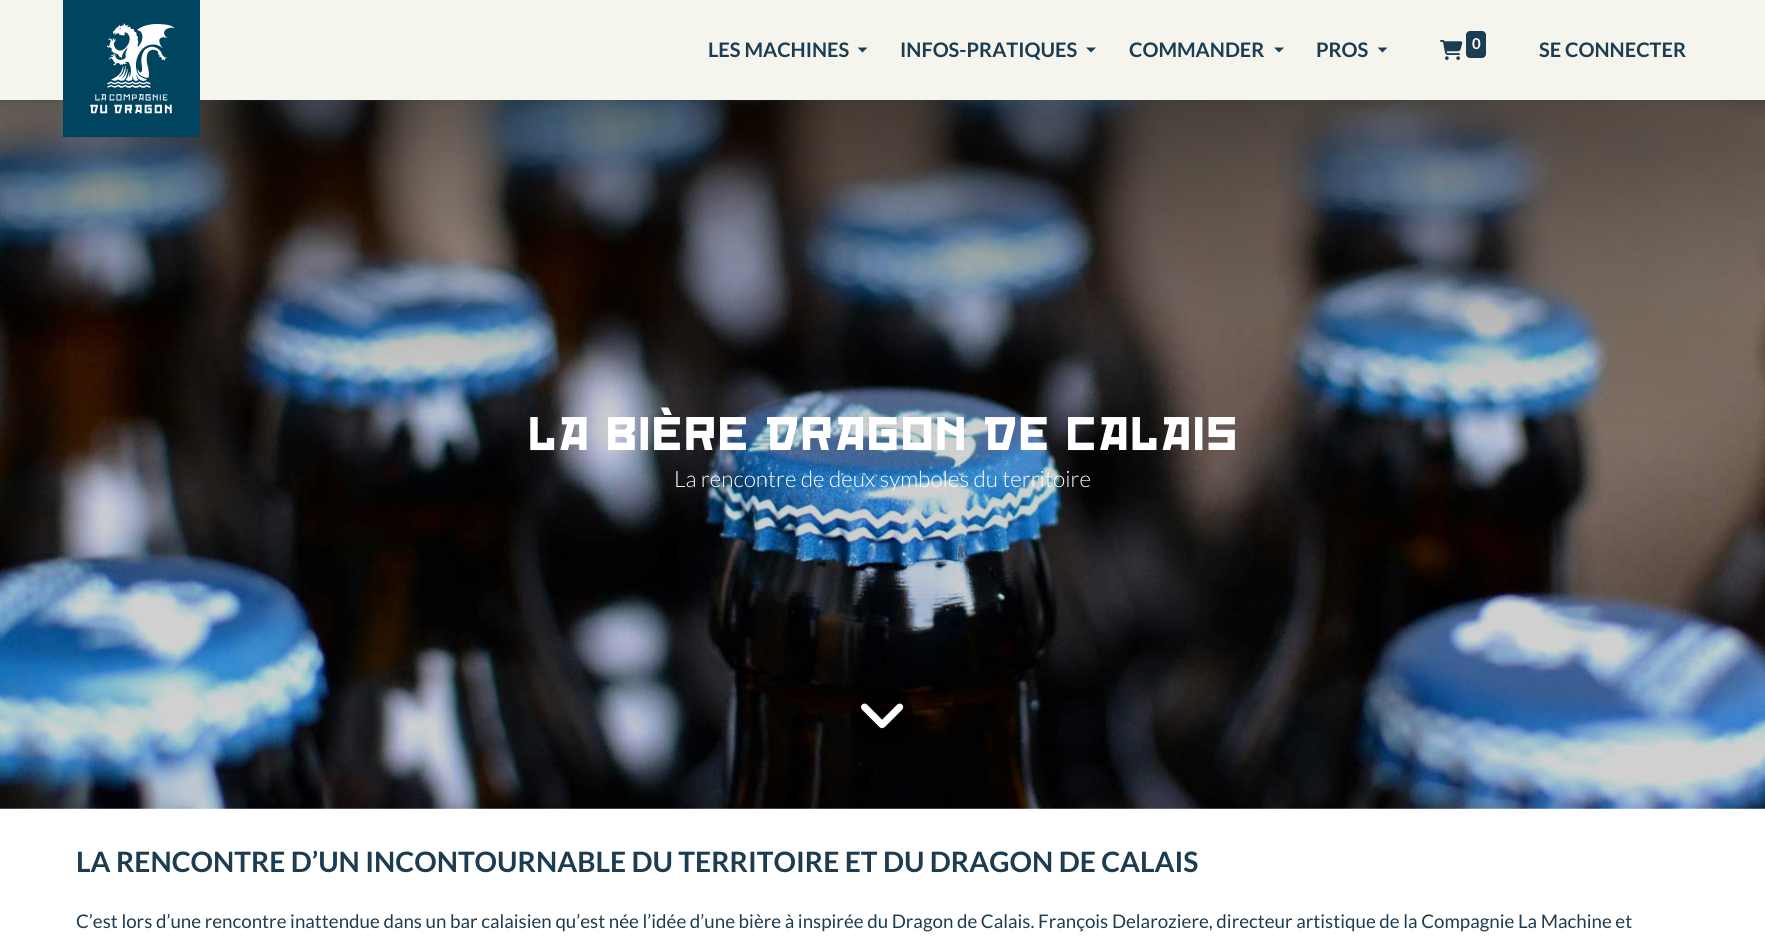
import math
import cairo

surface = cairo.ImageSurface(cairo.FORMAT_RGB24, 1765, 944)
cr = cairo.Context(surface)
options = cairo.FontOptions()
options.set_hint_metrics(cairo.HINT_METRICS_OFF)
options.set_hint_style(cairo.HINT_STYLE_NONE)
cr.set_font_options(options)
cr.set_miter_limit(4)


def rgb(code):
    cr.set_source_rgb(*(v / 255 for v in bytes.fromhex(code[-6:])))


def tracked(x, y, s, letter, word):
    cr.move_to(x, y)
    for ch in s:
        cr.show_text(ch)
        cr.rel_move_to(letter + word * (ch == ' '), 0)


def rrect(x, y, w, h, r):
    cr.new_sub_path()
    for i, (u, v) in enumerate([(x + w - r, y + h - r), (x + r, y + h - r), (x + r, y + r), (x + w - r, y + r)]):
        cr.arc(u, v, r, i * math.pi / 2, (i + 1) * math.pi / 2)
    cr.close_path()


def soft_shadow(x, y, w, h, r, blur, alpha):
    cr.push_group_with_content(cairo.CONTENT_ALPHA)
    cr.set_operator(cairo.OPERATOR_SOURCE)
    for i in range(15, -16, -2):
        e = blur * i / 6
        if min(w, h) + 2 * e > 0:
            cr.set_source_rgba(0, 0, 0, alpha * math.erfc((i - 1) / 8.5) / 2)
            rrect(x - e, y - e, w + 2 * e, h + 2 * e, max(0, min(r + e + blur * .6, min(w, h) / 2 + e)))
            cr.fill()
    cr.mask(cr.pop_group())


def image(path, x, y, w, h):
    cr.save()
    cr.set_source_surface(cairo.ImageSurface.create_from_png(path), x, y)
    cr.rectangle(x, y, w, h)
    cr.fill()
    cr.restore()


rgb("#ffffff")
cr.paint()
image("img/3.png", 0, 100, 1765, 709)
rgb("#1c3c51")
soft_shadow(0, -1, 1765, 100, 0, 2.5, 0.5)
rgb("#f5f5ed")
cr.rectangle(0, 0, 1765, 100)
cr.fill()
image("img/1.png", 63, 0, 137, 138)
rgb("#1c3c51")
cr.new_path()
cr.move_to(857.5, 47.5)
cr.line_to(867.5, 47.5)
cr.line_to(862.5, 52.5)
cr.close_path()
cr.fill()
cr.new_path()
cr.move_to(1086, 47.5)
cr.line_to(1096, 47.5)
cr.line_to(1091, 52.5)
cr.close_path()
cr.fill()
cr.new_path()
cr.move_to(1274, 47.5)
cr.line_to(1284, 47.5)
cr.line_to(1279, 52.5)
cr.close_path()
cr.fill()
cr.new_path()
cr.move_to(1377.5, 47.5)
cr.line_to(1387.5, 47.5)
cr.line_to(1382.5, 52.5)
cr.close_path()
cr.fill()
image("img/2.png", 1440, 40, 23, 20)
rrect(1466, 31, 20, 27, 4)
cr.fill()
cr.set_source_rgba(0, 0, 0, 0.5)
cr.arc(882.5, 717.5, 31.5, 0, 2 * math.pi)
cr.fill()
image("img/4.png", 861, 703, 43, 26)
cr.select_font_face("Lato", cairo.FONT_SLANT_NORMAL, cairo.FONT_WEIGHT_BOLD)
cr.set_font_size(20)
rgb("#1c3c51")
for x, y, s in [
    (708, 57, "LES MACHINES"),
    (900, 57, "INFOS-PRATIQUES"),
    (1129, 57, "COMMANDER"),
    (1316, 57, "PROS"),
]:
    cr.move_to(x, y)
    cr.show_text(s)
cr.set_font_size(15)
rgb("#ffffff")
cr.move_to(1472, 49)
cr.show_text("0")
cr.set_font_size(20)
rgb("#1c3c51")
cr.move_to(1539, 57)
cr.show_text("SE CONNECTER")
cr.select_font_face("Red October")
cr.set_font_size(41.25)
rgb("#ffffff")
tracked(527, 450, "LA BIÈRE DRAGON DE CALAIS", -0.4, 0)
cr.select_font_face("Lato Light")
cr.set_font_size(22.5)
cr.move_to(674, 487)
cr.show_text("La rencontre de deux symboles du territoire")
cr.select_font_face("Lato", cairo.FONT_SLANT_NORMAL, cairo.FONT_WEIGHT_BOLD)
cr.set_font_size(28.1)
rgb("#1c3c51")
cr.move_to(76, 872)
cr.show_text("LA RENCONTRE D’UN INCONTOURNABLE DU TERRITOIRE ET DU DRAGON DE CALAIS")
cr.select_font_face("Lato")
cr.set_font_size(18.75)
cr.move_to(76, 928)
cr.show_text("C’est lors d’une rencontre inattendue dans un bar calaisien qu’est née l’idée d’une bière à inspirée du Dragon de Calais. François Delaroziere, directeur artistique de la Compagnie La Machine et")
surface.write_to_png("page.png")
